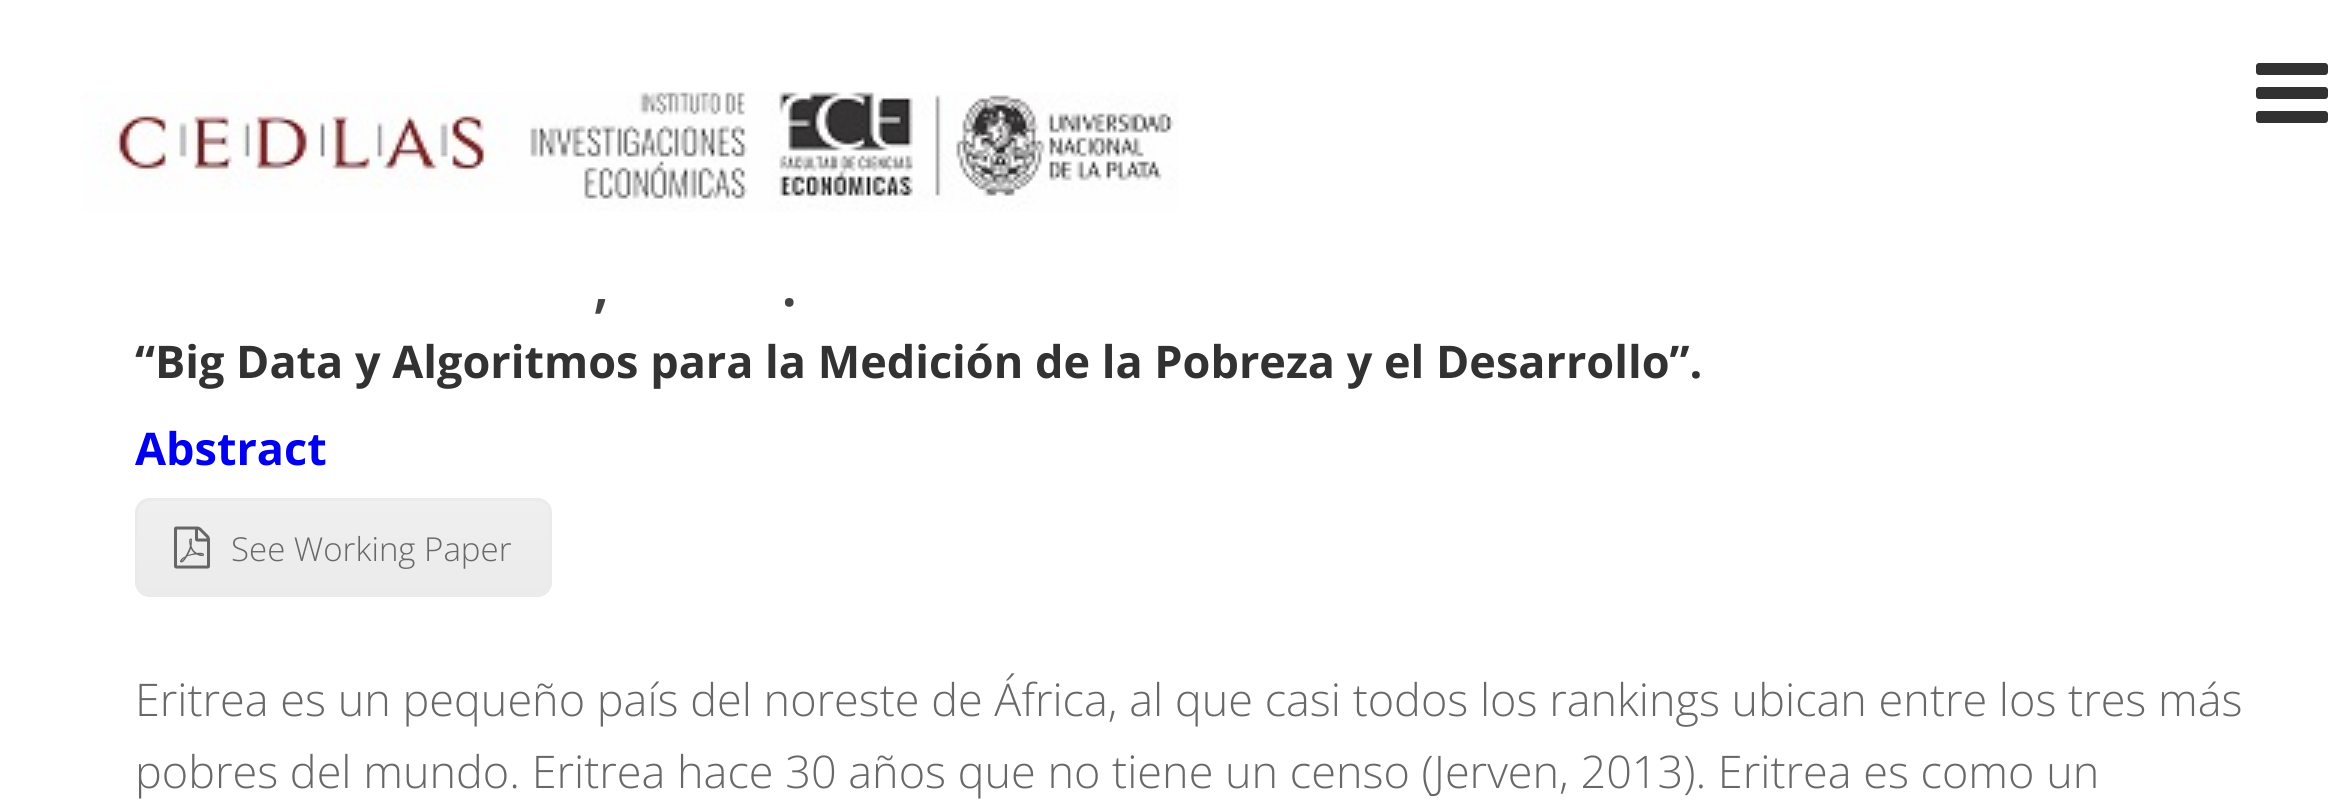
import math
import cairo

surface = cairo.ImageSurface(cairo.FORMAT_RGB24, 2342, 800)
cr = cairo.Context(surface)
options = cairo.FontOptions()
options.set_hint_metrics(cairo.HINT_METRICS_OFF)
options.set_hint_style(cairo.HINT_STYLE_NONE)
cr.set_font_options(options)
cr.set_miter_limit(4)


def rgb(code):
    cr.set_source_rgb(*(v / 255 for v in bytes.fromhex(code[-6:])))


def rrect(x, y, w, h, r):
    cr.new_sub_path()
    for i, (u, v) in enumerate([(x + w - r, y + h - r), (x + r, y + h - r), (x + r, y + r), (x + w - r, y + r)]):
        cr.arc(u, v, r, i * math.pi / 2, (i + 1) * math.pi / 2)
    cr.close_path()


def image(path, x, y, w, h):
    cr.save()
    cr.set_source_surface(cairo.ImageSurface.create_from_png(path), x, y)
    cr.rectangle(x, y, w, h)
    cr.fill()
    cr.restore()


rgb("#ffffff")
cr.paint()
image("img/1.png", 83, 92, 1096, 120)
image("img/2.png", 2256, 63, 72, 60)
rgb("#ebebeb")
rrect(135, 498, 417, 99, 15)
cr.fill()
cr.save()
rrect(135, 498, 417, 99, 15)
cr.clip()
gradient = cairo.LinearGradient(344, 501, 344, 594)
gradient.add_color_stop_rgba(0, 1, 1, 1, 0.2)
gradient.add_color_stop_rgba(1, 1, 1, 1, 0.01)
cr.set_source(gradient)
cr.rectangle(135, 501, 417, 87)
cr.fill()
cr.restore()
rrect(136.5, 499.5, 414, 96, 13.5)
cr.set_line_width(3)
cr.stroke()
image("img/3.png", 174, 526, 36, 43)
cr.select_font_face("Open Sans SemiBold")
cr.set_font_size(60)
rgb("#444444")
cr.move_to(593, 306)
cr.show_text(",")
cr.move_to(781, 306)
cr.show_text(".")
cr.select_font_face("Open Sans", cairo.FONT_SLANT_NORMAL, cairo.FONT_WEIGHT_BOLD)
cr.set_font_size(45)
rgb("#323232")
cr.move_to(135, 378)
cr.show_text("“Big Data y Algoritmos para la Medición de la Pobreza y el Desarrollo”.")
rgb("#0000ee")
cr.move_to(135, 465)
cr.show_text("Abstract")
cr.select_font_face("Open Sans Light")
cr.set_font_size(33)
rgb("#686868")
cr.move_to(231, 561)
cr.show_text("See Working Paper")
cr.set_font_size(45)
cr.move_to(135, 716)
cr.show_text("Eritrea es un pequeño país del noreste de África, al que casi todos los rankings ubican entre los tres más")
cr.move_to(135, 788)
cr.show_text("pobres del mundo. Eritrea hace 30 años que no tiene un censo (Jerven, 2013). Eritrea es como un")
surface.write_to_png("page.png")
